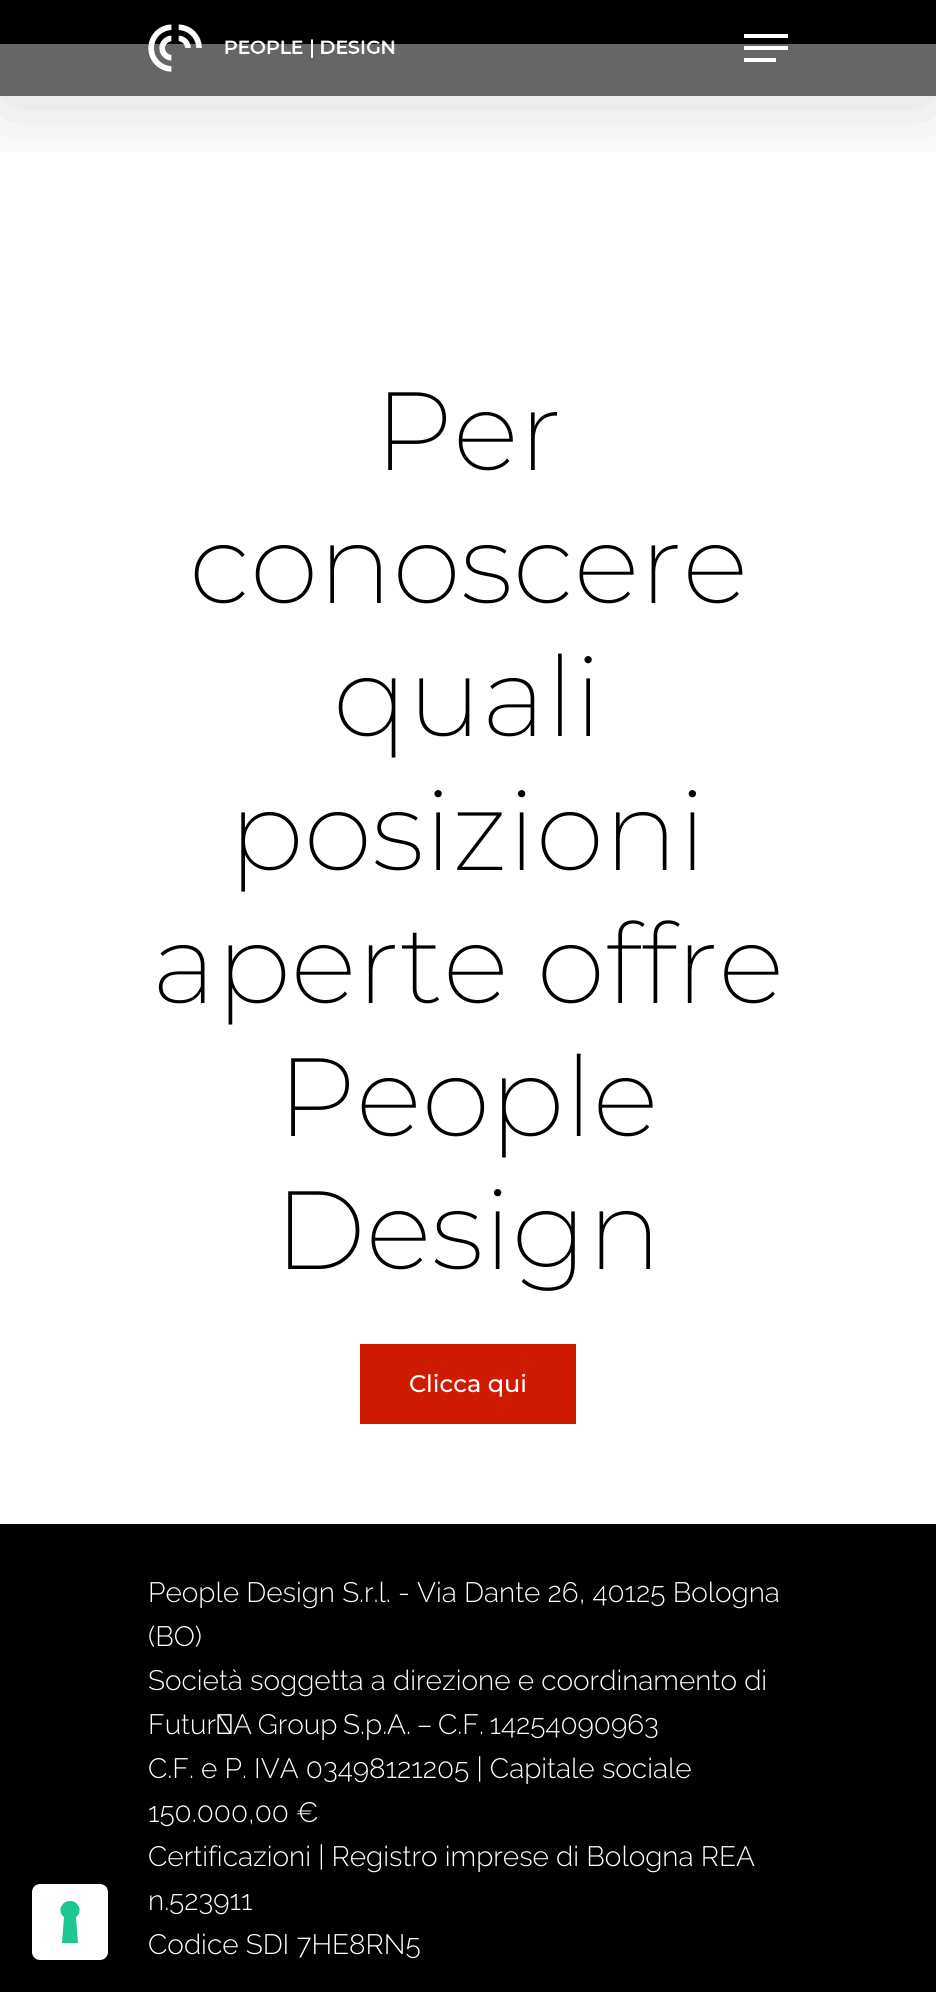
import math
import cairo

surface = cairo.ImageSurface(cairo.FORMAT_RGB24, 936, 1992)
cr = cairo.Context(surface)
options = cairo.FontOptions()
options.set_hint_metrics(cairo.HINT_METRICS_OFF)
options.set_hint_style(cairo.HINT_STYLE_NONE)
cr.set_font_options(options)
cr.set_miter_limit(4)


def rgb(code):
    cr.set_source_rgb(*(v / 255 for v in bytes.fromhex(code[-6:])))


def tracked(x, y, s, letter, word):
    cr.move_to(x, y)
    for ch in s:
        cr.show_text(ch)
        cr.rel_move_to(letter + word * (ch == ' '), 0)


def rrect(x, y, w, h, r):
    cr.new_sub_path()
    for i, (u, v) in enumerate([(x + w - r, y + h - r), (x + r, y + h - r), (x + r, y + r), (x + w - r, y + r)]):
        cr.arc(u, v, r, i * math.pi / 2, (i + 1) * math.pi / 2)
    cr.close_path()


def soft_shadow(x, y, w, h, r, blur, alpha):
    cr.push_group_with_content(cairo.CONTENT_ALPHA)
    cr.set_operator(cairo.OPERATOR_SOURCE)
    for i in range(15, -16, -2):
        e = blur * i / 6
        if min(w, h) + 2 * e > 0:
            cr.set_source_rgba(0, 0, 0, alpha * math.erfc((i - 1) / 8.5) / 2)
            rrect(x - e, y - e, w + 2 * e, h + 2 * e, max(0, min(r + e + blur * .6, min(w, h) / 2 + e)))
            cr.fill()
    cr.mask(cr.pop_group())


def image(path, x, y, w, h):
    cr.save()
    cr.set_source_surface(cairo.ImageSurface.create_from_png(path), x, y)
    cr.rectangle(x, y, w, h)
    cr.fill()
    cr.restore()


rgb("#ffffff")
cr.paint()
rgb("#666666")
cr.rectangle(0, 44, 936, 52)
cr.fill()
rgb("#000000")
cr.rectangle(0, 1524, 936, 468)
cr.fill()
rgb("#ffffff")
rrect(32, 1884, 76, 76, 8)
cr.fill()
rgb("#1cc691")
cr.set_fill_rule(cairo.FILL_RULE_EVEN_ODD)
cr.new_path()
cr.move_to(70, 1901)
cr.curve_to(79, 1901, 83, 1912, 76, 1917)
cr.line_to(78, 1943)
cr.line_to(62, 1943)
cr.line_to(64, 1917)
cr.curve_to(57, 1912, 61, 1901, 70, 1901)
cr.close_path()
cr.fill()
rgb("#000000")
cr.rectangle(0, 0, 936, 44)
cr.fill()
cr.save()
cr.set_fill_rule(cairo.FILL_RULE_WINDING)
cr.rectangle(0, 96, 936, 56)
cr.clip()
rgb("#000000")
soft_shadow(0, 6, 936, 96, 0, 45, 0.15)
cr.restore()
image("img/1.png", 148, 24, 247, 48)
for x, y, w, h, color in [
    (744, 34, 44, 4, "#ffffff"),
    (744, 58, 32, 4, "#ffffff"),
    (744, 46, 44, 4, "#ffffff"),
    (360, 1344, 216, 80, "#ce1b02"),
]:
    rgb(color)
    cr.rectangle(x, y, w, h)
    cr.fill()
cr.select_font_face("Montserrat ExtraLight")
cr.set_font_size(111)
rgb("#000000")
for x, y, s in [
    (374, 470, "Per"),
    (189, 603, "conoscere"),
    (333, 736, "quali"),
    (229, 870, "posizioni"),
    (152, 1003, "aperte offre"),
    (277, 1136, "People"),
    (274, 1269, "Design"),
]:
    cr.move_to(x, y)
    cr.show_text(s)
cr.select_font_face("Montserrat Medium")
cr.set_font_size(24)
rgb("#ffffff")
cr.move_to(409, 1392)
cr.show_text("Clicca qui")
cr.select_font_face("Raleway Light")
cr.set_font_size(28)
for x, y, s in [
    (148, 1602, "People Design S.r.l. - Via Dante 26, 40125 Bologna"),
    (148, 1646, "(BO)"),
    (148, 1690, "Società soggetta a direzione e coordinamento di"),
]:
    cr.move_to(x, y)
    cr.show_text(s)
tracked(148, 1734, "Futur‑A Group S.p.A. – C.F. 14254090963", 0, -1.5)
for x, y, s in [
    (148, 1778, "C.F. e P. IVA 03498121205 | Capitale sociale"),
    (148, 1822, "150.000,00 €"),
    (148, 1866, "Certificazioni | Registro imprese di Bologna REA"),
    (148, 1910, "n.523911"),
    (148, 1954, "Codice SDI 7HE8RN5"),
]:
    cr.move_to(x, y)
    cr.show_text(s)
surface.write_to_png("page.png")
